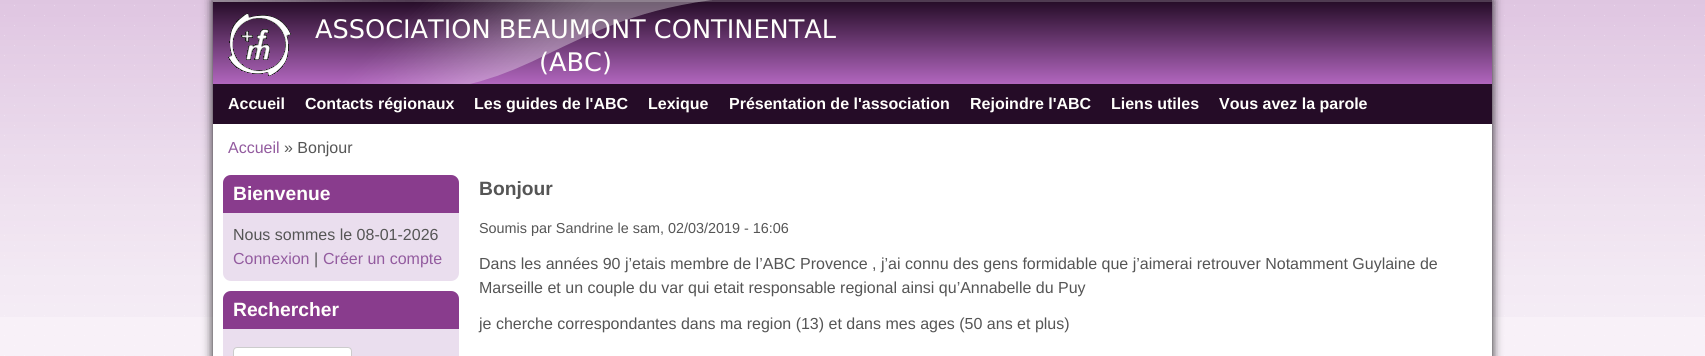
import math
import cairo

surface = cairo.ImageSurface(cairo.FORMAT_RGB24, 1705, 356)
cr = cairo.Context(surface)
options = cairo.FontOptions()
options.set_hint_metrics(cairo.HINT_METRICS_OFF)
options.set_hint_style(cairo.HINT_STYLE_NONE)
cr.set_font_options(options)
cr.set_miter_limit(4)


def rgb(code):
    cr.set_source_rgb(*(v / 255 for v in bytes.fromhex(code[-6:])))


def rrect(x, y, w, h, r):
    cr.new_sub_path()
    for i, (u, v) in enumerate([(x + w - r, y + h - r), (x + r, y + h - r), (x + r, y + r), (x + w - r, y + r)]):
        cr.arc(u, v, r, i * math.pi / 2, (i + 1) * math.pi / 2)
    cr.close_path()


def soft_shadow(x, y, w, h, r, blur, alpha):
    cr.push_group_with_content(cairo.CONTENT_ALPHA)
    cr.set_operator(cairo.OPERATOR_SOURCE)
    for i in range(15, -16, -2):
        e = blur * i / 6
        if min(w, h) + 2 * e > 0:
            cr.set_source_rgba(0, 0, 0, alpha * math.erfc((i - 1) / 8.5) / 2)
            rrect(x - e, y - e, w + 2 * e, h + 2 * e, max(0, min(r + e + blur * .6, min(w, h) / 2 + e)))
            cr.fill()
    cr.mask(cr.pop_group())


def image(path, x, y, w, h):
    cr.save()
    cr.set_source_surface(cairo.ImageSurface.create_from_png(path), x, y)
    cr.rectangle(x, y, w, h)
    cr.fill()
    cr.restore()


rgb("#f8f1f8")
cr.paint()
image("img/1.png", 0, 0, 1705, 317)
image("img/2.png", 4, 5, 1701, 351)
rgb("#000000")
soft_shadow(213, 0, 1279, 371, 0, 5, 0.9)
rgb("#ffffff")
cr.rectangle(213, 124, 1279, 232)
cr.fill()
image("img/3.png", 712, 0, 780, 84)
image("img/4.png", 213, 0, 499, 84)
image("img/5.png", 228, 13, 63, 63)
rgb("#250c27")
cr.rectangle(213, 84, 1279, 40)
cr.fill()
rgb("#eadeee")
rrect(223, 175, 236, 106, 8)
cr.fill()
rgb("#893c8d")
cr.new_path()
cr.move_to(231, 175)
cr.line_to(451, 175)
cr.curve_to(455.5, 175, 459, 178.5, 459, 183)
cr.line_to(459, 213)
cr.line_to(223, 213)
cr.line_to(223, 183)
cr.curve_to(223, 178.5, 226.5, 175, 231, 175)
cr.close_path()
cr.fill()
rgb("#eadeee")
rrect(223, 291, 236, 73, 8)
cr.fill()
rgb("#893c8d")
cr.new_path()
cr.move_to(231, 291)
cr.line_to(451, 291)
cr.curve_to(455.5, 291, 459, 294.5, 459, 299)
cr.line_to(459, 329)
cr.line_to(223, 329)
cr.line_to(223, 299)
cr.curve_to(223, 294.5, 226.5, 291, 231, 291)
cr.close_path()
cr.fill()
rgb("#ffffff")
rrect(233.5, 347.5, 118, 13, 3.5)
cr.fill_preserve()
rgb("#cccccc")
cr.set_line_width(1)
cr.stroke()
cr.select_font_face("DejaVu Sans")
cr.set_font_size(25.6)
rgb("#fffffc")
cr.move_to(315, 38)
cr.show_text("ASSOCIATION BEAUMONT CONTINENTAL")
cr.move_to(539, 71)
cr.show_text("(ABC)")
cr.select_font_face("Liberation Sans", cairo.FONT_SLANT_NORMAL, cairo.FONT_WEIGHT_BOLD)
cr.set_font_size(16)
for x, y, s in [
    (228, 109, "Accueil"),
    (305, 109, "Contacts régionaux"),
    (474, 109, "Les guides de l'ABC"),
    (648, 109, "Lexique"),
    (729, 109, "Présentation de l'association"),
    (970, 109, "Rejoindre l'ABC"),
    (1111, 109, "Liens utiles"),
    (1219, 109, "Vous avez la parole"),
]:
    cr.move_to(x, y)
    cr.show_text(s)
cr.select_font_face("Liberation Sans")
rgb("#935b9f")
cr.move_to(228, 153)
cr.show_text("Accueil")
rgb("#555555")
cr.move_to(284, 153)
cr.show_text("» Bonjour")
cr.select_font_face("Liberation Sans", cairo.FONT_SLANT_NORMAL, cairo.FONT_WEIGHT_BOLD)
cr.set_font_size(19.25)
rgb("#fffffc")
cr.move_to(233, 200)
cr.show_text("Bienvenue")
cr.select_font_face("Liberation Sans")
cr.set_font_size(16)
rgb("#555555")
cr.move_to(233, 240)
cr.show_text("Nous sommes le 08-01-2026")
rgb("#935b9f")
cr.move_to(233, 264)
cr.show_text("Connexion")
rgb("#555555")
cr.move_to(314, 264)
cr.show_text("|")
rgb("#935b9f")
cr.move_to(323, 264)
cr.show_text("Créer un compte")
cr.select_font_face("Liberation Sans", cairo.FONT_SLANT_NORMAL, cairo.FONT_WEIGHT_BOLD)
cr.set_font_size(19.25)
rgb("#fffffc")
cr.move_to(233, 316)
cr.show_text("Rechercher")
rgb("#555555")
cr.move_to(479, 195)
cr.show_text("Bonjour")
cr.select_font_face("Liberation Sans")
cr.set_font_size(14.4)
cr.move_to(479, 233)
cr.show_text("Soumis par Sandrine le sam, 02/03/2019 - 16:06")
cr.set_font_size(16)
for x, y, s in [
    (479, 269, "Dans les années 90 j’etais membre de l’ABC Provence , j’ai connu des gens formidable que j’aimerai retrouver Notamment Guylaine de"),
    (479, 293, "Marseille et un couple du var qui etait responsable regional ainsi qu’Annabelle du Puy"),
    (479, 329, "je cherche correspondantes dans ma region (13) et dans mes ages (50 ans et plus)"),
]:
    cr.move_to(x, y)
    cr.show_text(s)
surface.write_to_png("page.png")
